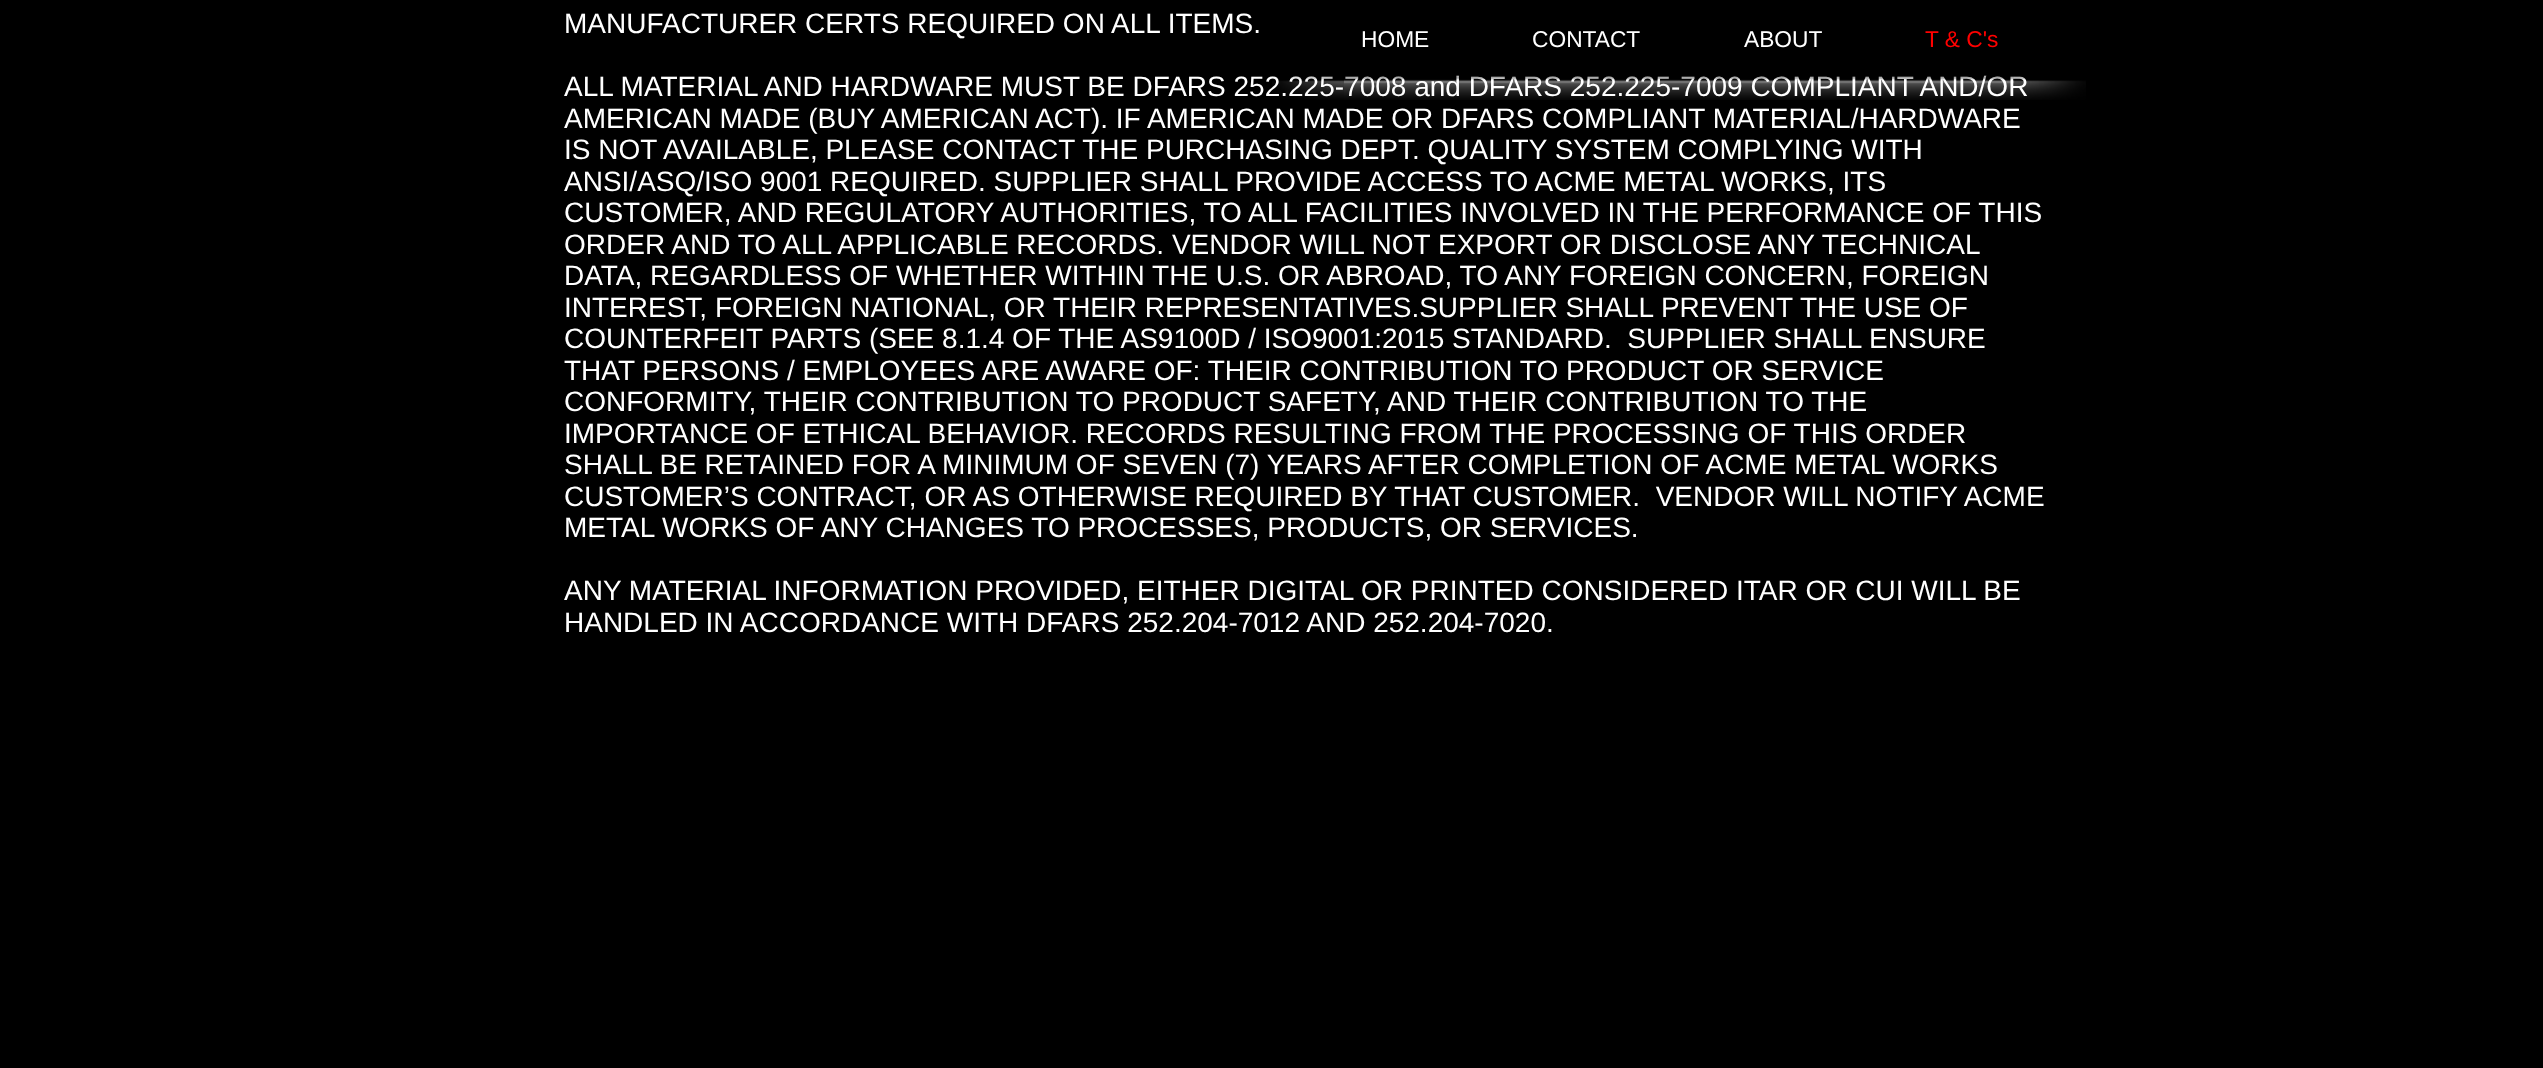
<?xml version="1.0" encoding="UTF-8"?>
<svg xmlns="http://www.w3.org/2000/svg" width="2543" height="1068">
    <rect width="100%" height="100%" fill="#000000"/>
    <text x="564" y="33" font-family="Liberation Sans" font-size="28" fill="#FFFFFF">MANUFACTURER CERTS REQUIRED ON ALL ITEMS.</text>
    <text font-family="Liberation Sans" font-size="28" fill="#FFFFFF" xml:space="preserve"><tspan x="564" y="96">ALL MATERIAL AND HARDWARE MUST BE DFARS 252.225-7008 and DFARS 252.225-7009 COMPLIANT AND/OR</tspan><tspan x="564" y="128">AMERICAN MADE (BUY AMERICAN ACT). IF AMERICAN MADE OR DFARS COMPLIANT MATERIAL/HARDWARE</tspan><tspan x="564" y="159">IS NOT AVAILABLE, PLEASE CONTACT THE PURCHASING DEPT. QUALITY SYSTEM COMPLYING WITH</tspan><tspan x="564" y="191">ANSI/ASQ/ISO 9001 REQUIRED. SUPPLIER SHALL PROVIDE ACCESS TO ACME METAL WORKS, ITS</tspan><tspan x="564" y="222">CUSTOMER, AND REGULATORY AUTHORITIES, TO ALL FACILITIES INVOLVED IN THE PERFORMANCE OF THIS</tspan><tspan x="564" y="254">ORDER AND TO ALL APPLICABLE RECORDS. VENDOR WILL NOT EXPORT OR DISCLOSE ANY TECHNICAL</tspan><tspan x="564" y="285">DATA, REGARDLESS OF WHETHER WITHIN THE U.S. OR ABROAD, TO ANY FOREIGN CONCERN, FOREIGN</tspan><tspan x="564" y="317">INTEREST, FOREIGN NATIONAL, OR THEIR REPRESENTATIVES.SUPPLIER SHALL PREVENT THE USE OF</tspan><tspan x="564" y="348">COUNTERFEIT PARTS (SEE 8.1.4 OF THE AS9100D / ISO9001:2015 STANDARD.  SUPPLIER SHALL ENSURE</tspan><tspan x="564" y="380">THAT PERSONS / EMPLOYEES ARE AWARE OF: THEIR CONTRIBUTION TO PRODUCT OR SERVICE</tspan><tspan x="564" y="411">CONFORMITY, THEIR CONTRIBUTION TO PRODUCT SAFETY, AND THEIR CONTRIBUTION TO THE</tspan><tspan x="564" y="443">IMPORTANCE OF ETHICAL BEHAVIOR. RECORDS RESULTING FROM THE PROCESSING OF THIS ORDER</tspan><tspan x="564" y="474">SHALL BE RETAINED FOR A MINIMUM OF SEVEN (7) YEARS AFTER COMPLETION OF ACME METAL WORKS</tspan><tspan x="564" y="506">CUSTOMER’S CONTRACT, OR AS OTHERWISE REQUIRED BY THAT CUSTOMER.  VENDOR WILL NOTIFY ACME</tspan><tspan x="564" y="537">METAL WORKS OF ANY CHANGES TO PROCESSES, PRODUCTS, OR SERVICES.</tspan></text>
    <text font-family="Liberation Sans" font-size="28" fill="#FFFFFF">
        <tspan x="564" y="600">ANY MATERIAL INFORMATION PROVIDED, EITHER DIGITAL OR PRINTED CONSIDERED ITAR OR CUI WILL BE</tspan>
        <tspan x="564" y="632">HANDLED IN ACCORDANCE WITH DFARS 252.204-7012 AND 252.204-7020.</tspan>
    </text>
    <text x="1361" y="47" font-family="Liberation Sans" font-size="22.75" fill="#FFFFFF">HOME</text>
    <text x="1532" y="47" font-family="Liberation Sans" font-size="22.75" fill="#FFFFFF">CONTACT</text>
    <text x="1744" y="47" font-family="Liberation Sans" font-size="22.75" fill="#FFFFFF">ABOUT</text>
    <text x="1925" y="47" font-family="Liberation Sans" font-size="22.75" fill="#FF0000">T &amp; C's</text>
    <image x="1344" y="75" width="671" height="25" href="img_01.png"/>
    <image x="1272" y="76" width="72" height="24" href="img_02.png"/>
    <image x="2014" y="76" width="72" height="24" href="img_03.png"/>
</svg>
